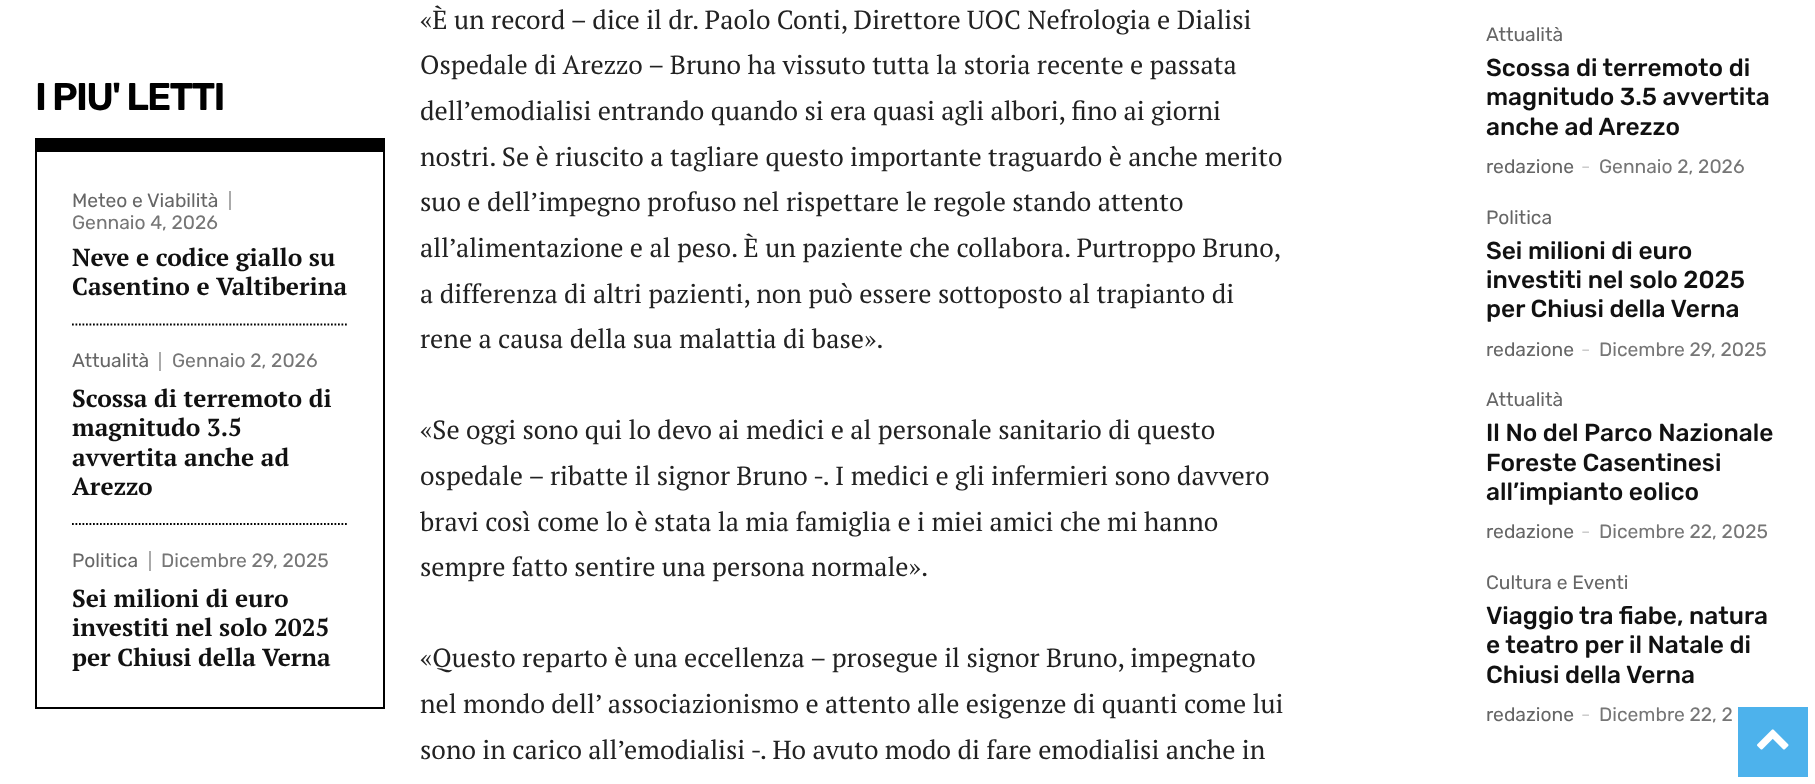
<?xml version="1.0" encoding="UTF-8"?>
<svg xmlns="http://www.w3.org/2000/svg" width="1815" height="784">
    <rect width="100%" height="100%" fill="#FFFFFF"/>
    <text x="35" y="110" font-family="Rubik" font-size="38.5" font-weight="600" letter-spacing="-1.75" fill="#000000">I PIU' LETTI</text>
    <rect x="37" y="138" width="346" height="14" fill="#000000"/>
    <rect x="383" y="138" width="2" height="571" fill="#000000"/>
    <rect x="35" y="707" width="350" height="2" fill="#000000"/>
    <rect x="35" y="138" width="2" height="571" fill="#000000"/>
    <rect x="229" y="191" width="2" height="19" fill="#AAAAAA"/>
    <text x="72" y="207" font-family="Rubik" font-size="19.25" fill="#666666">Meteo e Viabilità</text>
    <text x="72" y="229" font-family="Rubik" font-size="19.25" fill="#767676">Gennaio 4, 2026</text>
    <text font-family="PT Serif" font-size="24.5" font-weight="700" fill="#111111">
        <tspan x="72" y="266">Neve e codice giallo su</tspan>
        <tspan x="72" y="295">Casentino e Valtiberina</tspan>
    </text>
    <path d="M 72 324.5 H 348" fill="none" stroke="#000000" stroke-width="1.8" stroke-dasharray="1.75 1.75"/>
    <rect x="159" y="352" width="2" height="19" fill="#AAAAAA"/>
    <text x="72" y="367" font-family="Rubik" font-size="19.25" fill="#666666">Attualità</text>
    <text x="172" y="367" font-family="Rubik" font-size="19.25" fill="#767676">Gennaio 2, 2026</text>
    <text font-family="PT Serif" font-size="24.5" font-weight="700" fill="#111111">
        <tspan x="72" y="407">Scossa di terremoto di</tspan>
        <tspan x="72" y="436">magnitudo 3.5</tspan>
        <tspan x="72" y="466">avvertita anche ad</tspan>
        <tspan x="72" y="495">Arezzo</tspan>
    </text>
    <path d="M 72 524 H 348" fill="none" stroke="#000000" stroke-width="1.8" stroke-dasharray="1.75 1.75"/>
    <rect x="149" y="551" width="2" height="20" fill="#AAAAAA"/>
    <text x="72" y="567" font-family="Rubik" font-size="19.25" fill="#666666">Politica</text>
    <text x="161" y="567" font-family="Rubik" font-size="19.25" fill="#767676">Dicembre 29, 2025</text>
    <text font-family="PT Serif" font-size="24.5" font-weight="700" fill="#111111">
        <tspan x="72" y="607">Sei milioni di euro</tspan>
        <tspan x="72" y="636">investiti nel solo 2025</tspan>
        <tspan x="72" y="666">per Chiusi della Verna</tspan>
    </text>
    <text font-family="PT Serif" font-size="26.25" fill="#222222">
        <tspan x="420" y="29">«È un record – dice il dr. Paolo Conti, Direttore UOC Nefrologia e Dialisi</tspan>
        <tspan x="420" y="74">Ospedale di Arezzo – Bruno ha vissuto tutta la storia recente e passata</tspan>
        <tspan x="420" y="120">dell’emodialisi entrando quando si era quasi agli albori, fino ai giorni</tspan>
        <tspan x="420" y="166">nostri. Se è riuscito a tagliare questo importante traguardo è anche merito</tspan>
        <tspan x="420" y="211">suo e dell’impegno profuso nel rispettare le regole stando attento</tspan>
        <tspan x="420" y="257">all’alimentazione e al peso. È un paziente che collabora. Purtroppo Bruno,</tspan>
        <tspan x="420" y="303">a differenza di altri pazienti, non può essere sottoposto al trapianto di</tspan>
        <tspan x="420" y="348">rene a causa della sua malattia di base».</tspan>
    </text>
    <text font-family="PT Serif" font-size="26.25" fill="#222222">
        <tspan x="420" y="439">«Se oggi sono qui lo devo ai medici e al personale sanitario di questo</tspan>
        <tspan x="420" y="485">ospedale – ribatte il signor Bruno -. I medici e gli infermieri sono davvero</tspan>
        <tspan x="420" y="531">bravi così come lo è stata la mia famiglia e i miei amici che mi hanno</tspan>
        <tspan x="420" y="576">sempre fatto sentire una persona normale».</tspan>
    </text>
    <text font-family="PT Serif" font-size="26.25" fill="#222222">
        <tspan x="420" y="667">«Questo reparto è una eccellenza – prosegue il signor Bruno, impegnato</tspan>
        <tspan x="420" y="713">nel mondo dell’ associazionismo e attento alle esigenze di quanti come lui</tspan>
        <tspan x="420" y="759">sono in carico all’emodialisi -. Ho avuto modo di fare emodialisi anche in</tspan>
    </text>
    <text x="1486" y="41" font-family="Rubik" font-size="19.25" fill="#666666">Attualità</text>
    <text font-family="Rubik" font-size="24.5" font-weight="500" fill="#111111">
        <tspan x="1486" y="76">Scossa di terremoto di</tspan>
        <tspan x="1486" y="105">magnitudo 3.5 avvertita</tspan>
        <tspan x="1486" y="135">anche ad Arezzo</tspan>
    </text>
    <text x="1486" y="173" font-family="Rubik" font-size="19.25" fill="#666666">redazione</text>
    <text x="1581" y="173" font-family="Rubik" font-size="19.25" fill="#CCCCCC">-</text>
    <text x="1599" y="173" font-family="Rubik" font-size="19.25" fill="#767676">Gennaio 2, 2026</text>
    <text x="1486" y="224" font-family="Rubik" font-size="19.25" fill="#666666">Politica</text>
    <text font-family="Rubik" font-size="24.5" font-weight="500" fill="#111111">
        <tspan x="1486" y="259">Sei milioni di euro</tspan>
        <tspan x="1486" y="288">investiti nel solo 2025</tspan>
        <tspan x="1486" y="317">per Chiusi della Verna</tspan>
    </text>
    <text x="1486" y="356" font-family="Rubik" font-size="19.25" fill="#666666">redazione</text>
    <text x="1581" y="356" font-family="Rubik" font-size="19.25" fill="#CCCCCC">-</text>
    <text x="1599" y="356" font-family="Rubik" font-size="19.25" fill="#767676">Dicembre 29, 2025</text>
    <text x="1486" y="406" font-family="Rubik" font-size="19.25" fill="#666666">Attualità</text>
    <text font-family="Rubik" font-size="24.5" font-weight="500" fill="#111111">
        <tspan x="1486" y="441">Il No del Parco Nazionale</tspan>
        <tspan x="1486" y="471">Foreste Casentinesi</tspan>
        <tspan x="1486" y="500">all’impianto eolico</tspan>
    </text>
    <text x="1486" y="538" font-family="Rubik" font-size="19.25" fill="#666666">redazione</text>
    <text x="1581" y="538" font-family="Rubik" font-size="19.25" fill="#CCCCCC">-</text>
    <text x="1599" y="538" font-family="Rubik" font-size="19.25" fill="#767676">Dicembre 22, 2025</text>
    <text x="1486" y="589" font-family="Rubik" font-size="19.25" fill="#666666">Cultura e Eventi</text>
    <text font-family="Rubik" font-size="24.5" font-weight="500" fill="#111111">
        <tspan x="1486" y="624">Viaggio tra fiabe, natura</tspan>
        <tspan x="1486" y="653">e teatro per il Natale di</tspan>
        <tspan x="1486" y="683">Chiusi della Verna</tspan>
    </text>
    <text x="1486" y="721" font-family="Rubik" font-size="19.25" fill="#666666">redazione</text>
    <text x="1581" y="721" font-family="Rubik" font-size="19.25" fill="#CCCCCC">-</text>
    <text x="1599" y="721" font-family="Rubik" font-size="19.25" fill="#767676">Dicembre 22, 2</text>
    <rect x="1738" y="707" width="70" height="70" fill="#4DB2EC"/>
    <image x="1757" y="729" width="32" height="21" href="img_01.png"/>
</svg>
